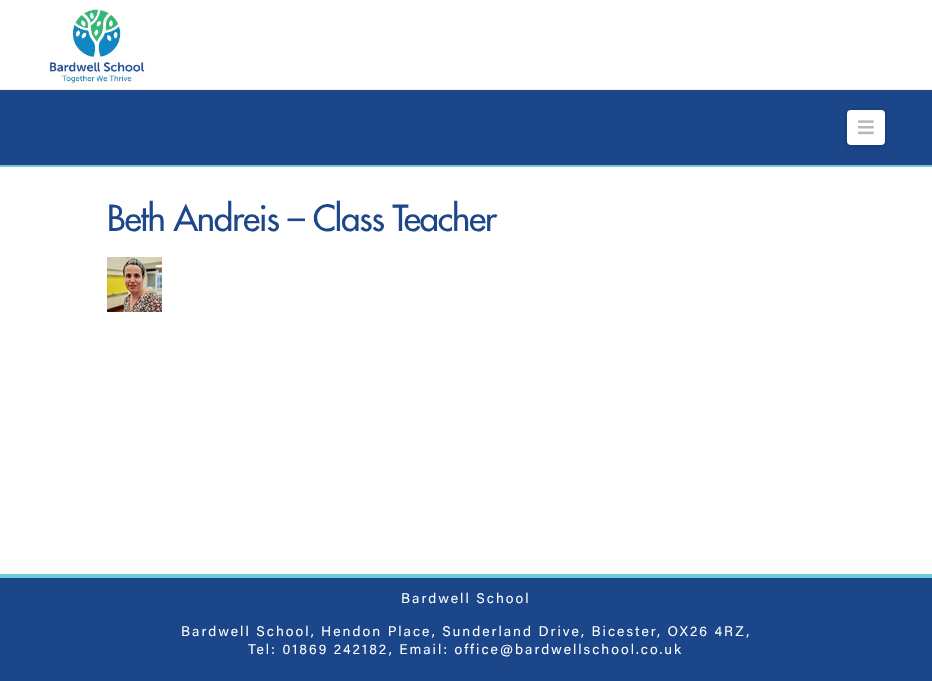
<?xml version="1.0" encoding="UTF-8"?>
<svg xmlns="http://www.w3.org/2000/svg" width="932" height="681">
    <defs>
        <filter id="blur1" x="-50%" y="-200%" width="200%" height="500%"><feGaussianBlur stdDeviation="2.5"/></filter>
    </defs>
    <rect width="100%" height="100%" fill="#FFFFFF"/>
    <rect x="0" y="165" width="932" height="2" fill="#6CCCDA"/>
    <rect x="0" y="90" width="932" height="75" fill="#1B468A"/>
    <image x="47" y="9" width="100" height="78" href="img_01.png"/>
    <rect x="847" y="111" width="38" height="35" rx="4" fill="#000000" fill-opacity="0.25" filter="url(#blur1)"/>
    <rect x="847" y="110" width="38" height="35" rx="4" fill="#FFFFFF"/>
    <image x="858" y="120" width="16" height="15" href="img_02.png"/>
    <rect x="0" y="89" width="932" height="1" fill="#F2F2F2"/>
    <text x="107" y="231" font-family="Futura" font-size="35" font-weight="500" letter-spacing="-1.25" fill="#1C4789">Beth Andreis – Class Teacher</text>
    <image x="107" y="257" width="55" height="55" href="img_03.png"/>
    <rect x="0" y="578" width="932" height="103" fill="#1B468A"/>
    <rect x="0" y="574" width="932" height="4" fill="#6CCCDA"/>
    <text x="401" y="603" font-family="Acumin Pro" font-size="14" letter-spacing="2" fill="#FFFFFF">Bardwell School</text>
    <text x="181" y="636" font-family="Acumin Pro" font-size="14" letter-spacing="2" fill="#FFFFFF">Bardwell School, Hendon Place, Sunderland Drive, Bicester, OX26 4RZ,</text>
    <text x="248" y="654" font-family="Acumin Pro" font-size="14" letter-spacing="2" fill="#FFFFFF">Tel: 01869 242182, Email: office@bardwellschool.co.uk</text>
</svg>
